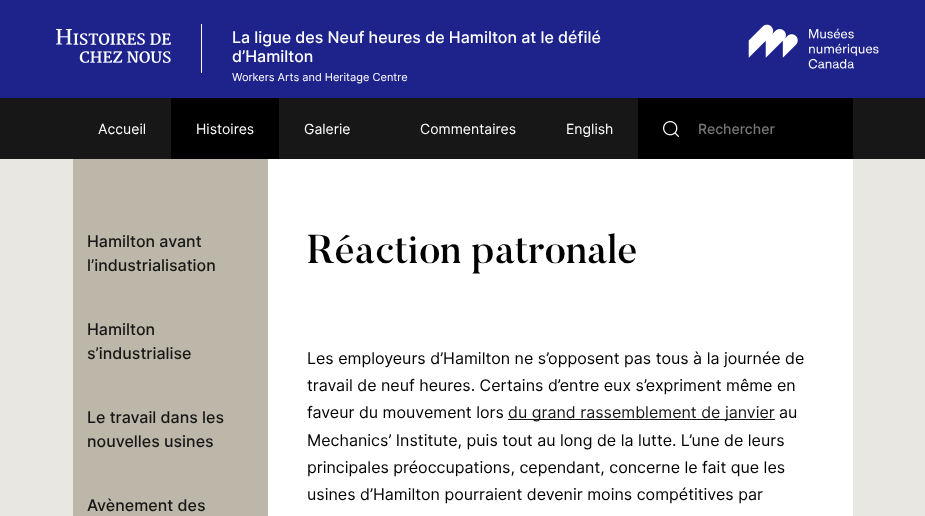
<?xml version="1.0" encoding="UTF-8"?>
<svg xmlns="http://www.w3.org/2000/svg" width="925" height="516">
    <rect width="100%" height="100%" fill="#E8E7E2"/>
    <rect x="0" y="0" width="925" height="98" fill="#1E238B"/>
    <rect x="201" y="24" width="1" height="49" fill="#FFFFFF"/>
    <image x="56" y="29" width="115" height="34" href="img_01.png"/>
    <image x="748" y="24" width="131" height="45" href="img_02.png"/>
    <text font-family="Inter" font-size="16" font-weight="500" fill="#FFFFFF">
        <tspan x="232" y="43">La ligue des Neuf heures de Hamilton at le défilé</tspan>
        <tspan x="232" y="62">d’Hamilton</tspan>
    </text>
    <text x="232" y="81" font-family="Inter" font-size="11" fill="#FFFFFF">Workers Arts and Heritage Centre</text>
    <rect x="0" y="98" width="925" height="61" fill="#171717"/>
    <text x="98" y="134" font-family="Inter" font-size="14" fill="#FFFFFF">Accueil</text>
    <rect x="171" y="98" width="108" height="61" fill="#000000"/>
    <text x="196" y="134" font-family="Inter" font-size="14" fill="#FFFFFF">Histoires</text>
    <text x="304" y="134" font-family="Inter" font-size="14" fill="#FFFFFF">Galerie</text>
    <text x="420" y="134" font-family="Inter" font-size="14" fill="#FFFFFF">Commentaires</text>
    <text x="566" y="134" font-family="Inter" font-size="14" fill="#FFFFFF">English</text>
    <rect x="638" y="98" width="215" height="61" fill="#000000"/>
    <image x="663" y="121" width="16" height="16" href="img_03.png"/>
    <text x="698" y="134" font-family="Inter" font-size="14" font-weight="500" fill="#757575">Rechercher</text>
    <rect x="73" y="159" width="195" height="357" fill="#BDB7AA"/>
    <text font-family="Inter" font-size="16" font-weight="500" fill="#171717">
        <tspan x="87" y="247">Hamilton avant</tspan>
        <tspan x="87" y="271">l’industrialisation</tspan>
    </text>
    <text font-family="Inter" font-size="16" font-weight="500" fill="#171717">
        <tspan x="87" y="335">Hamilton</tspan>
        <tspan x="87" y="359">s’industrialise</tspan>
    </text>
    <text font-family="Inter" font-size="16" font-weight="500" fill="#171717">
        <tspan x="87" y="423">Le travail dans les</tspan>
        <tspan x="87" y="447">nouvelles usines</tspan>
    </text>
    <text x="87" y="511" font-family="Inter" font-size="16" font-weight="500" fill="#171717">Avènement des</text>
    <rect x="268" y="159" width="585" height="357" fill="#FFFFFF"/>
    <text x="307" y="263" font-family="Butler" font-size="40" font-weight="500" fill="#000000">Réaction patronale</text>
    <text font-family="Inter" font-size="16" fill="#000000">
        <tspan x="307" y="364">Les employeurs d’Hamilton ne s’opposent pas tous à la journée de</tspan>
        <tspan x="307" y="391">travail de neuf heures. Certains d’entre eux s’expriment même en</tspan>
        <tspan x="307" y="418">faveur du mouvement lors</tspan>
    </text>
    <rect x="508" y="419" width="267" height="1" fill="#171717"/>
    <text x="508" y="418" font-family="Inter" font-size="16" fill="#171717">du grand rassemblement de janvier</text>
    <text x="779" y="418" font-family="Inter" font-size="16" fill="#000000">au</text>
    <text font-family="Inter" font-size="16" fill="#000000">
        <tspan x="307" y="446">Mechanics’ Institute, puis tout au long de la lutte. L’une de leurs</tspan>
        <tspan x="307" y="473">principales préoccupations, cependant, concerne le fait que les</tspan>
        <tspan x="307" y="500">usines d’Hamilton pourraient devenir moins compétitives par</tspan>
    </text>
</svg>
